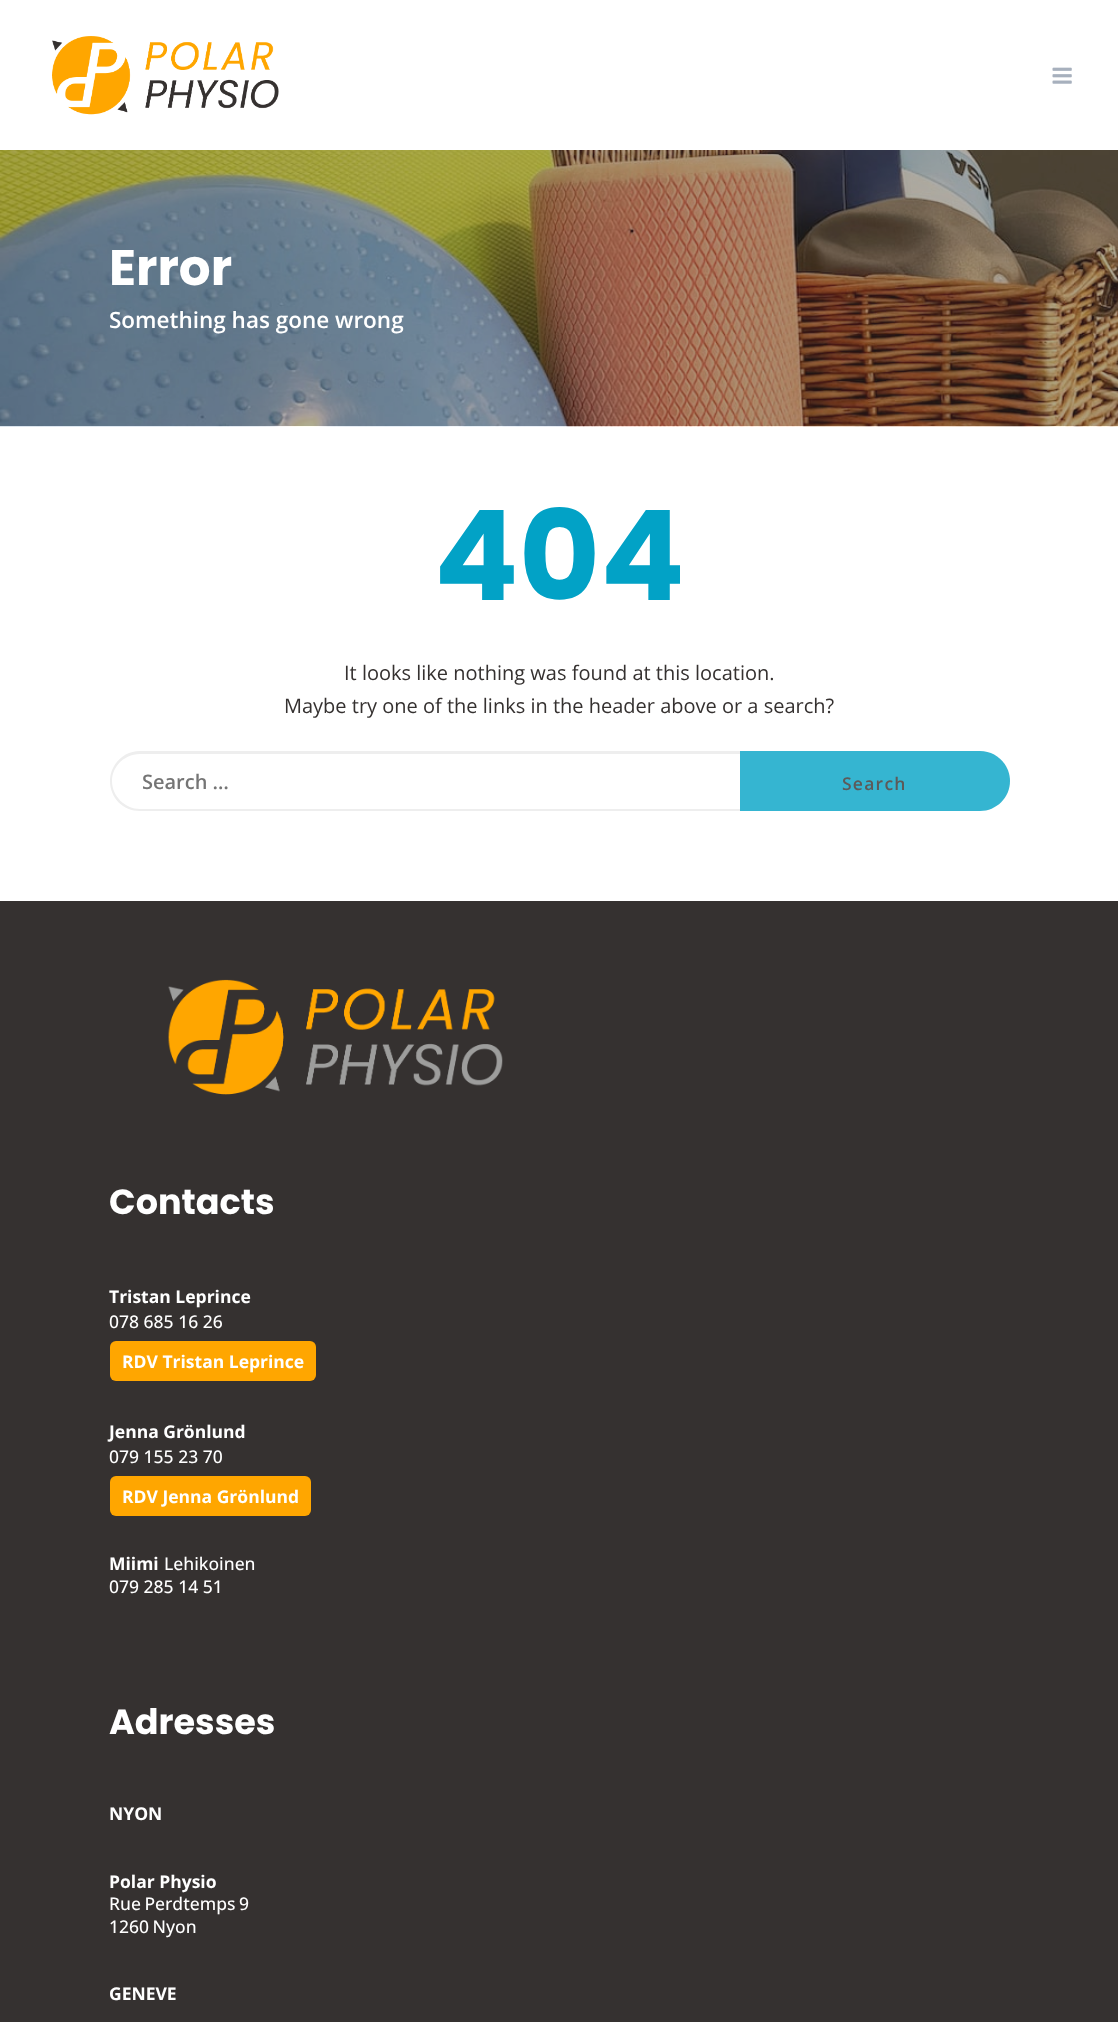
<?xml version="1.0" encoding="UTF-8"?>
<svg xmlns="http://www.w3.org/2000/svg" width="1118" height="2022">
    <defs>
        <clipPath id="clip1"><rect x="143" y="768" width="577" height="27"/></clipPath>
    </defs>
    <rect width="100%" height="100%" fill="#FFFFFF"/>
    <image x="52" y="36" width="227" height="79" href="img_01.png"/>
    <image x="1052" y="67" width="20" height="17" href="img_02.png"/>
    <image x="0" y="150" width="1118" height="277" href="img_03.png"/>
    <text x="109" y="285" font-family="Poppins" font-size="50" font-weight="700" fill="#FFFFFF">Error</text>
    <text x="109" y="328" font-family="Open Sans" font-size="22.5" font-weight="600" fill="#FFFFFF">Something has gone wrong</text>
    <text x="434" y="600" font-family="Poppins" font-size="125" font-weight="700" fill="#02A2C6">404</text>
    <text x="344" y="680" font-family="Open Sans" font-size="20" fill="#353130">It looks like nothing was found at this location.</text>
    <text x="284" y="713" font-family="Open Sans" font-size="20" fill="#353130">Maybe try one of the links in the header above or a search?</text>
    <path d="M 140 751 H 740 V 811 H 140 C 123 811 110 798 110 781 C 110 765 123 751 140 751 Z M 140 754 H 740 V 809 H 140 C 125 809 112 796 112 781 C 112 766 125 754 140 754 Z" fill="#EEEEEE" fill-rule="evenodd"/>
    <g clip-path="url(#clip1)">
        <text x="142" y="789" font-family="Open Sans" font-size="20" font-weight="600" fill="#757575">Search …</text>
    </g>
    <path d="M 740 751 H 980 C 996.5 751 1010 764.5 1010 781 C 1010 797.5 996.5 811 980 811 H 740 Z" fill="#35B5D1"/>
    <text x="842" y="790" font-family="Open Sans" font-size="17.5" font-weight="600" letter-spacing="1.25" fill="#5D5A59">Search</text>
    <rect x="0" y="901" width="1118" height="1121" fill="#353130"/>
    <image x="168" y="979" width="335" height="116" href="img_04.png"/>
    <text x="109" y="1214" font-family="Poppins" font-size="35" font-weight="700" fill="#FFFFFF">Contacts</text>
    <text x="109" y="1303" font-family="Open Sans" font-size="17.5" font-weight="700" fill="#FFFFFF">Tristan Leprince</text>
    <text x="109" y="1328" font-family="Open Sans" font-size="17.5" font-weight="500" fill="#FFFFFF">078 685 16 26</text>
    <rect x="110" y="1341" width="206" height="40" rx="6" fill="#FFA600"/>
    <text x="122" y="1368" font-family="Open Sans" font-size="17.5" font-weight="700" fill="#FFFFFF">RDV Tristan Leprince</text>
    <text x="109" y="1438" font-family="Open Sans" font-size="17.5" font-weight="700" fill="#FFFFFF">Jenna Grönlund</text>
    <text x="109" y="1463" font-family="Open Sans" font-size="17.5" font-weight="500" fill="#FFFFFF">079 155 23 70</text>
    <rect x="110" y="1476" width="201" height="40" rx="6" fill="#FFA600"/>
    <text x="122" y="1503" font-family="Open Sans" font-size="17.5" font-weight="700" fill="#FFFFFF">RDV Jenna Grönlund</text>
    <text x="109" y="1570" font-family="Open Sans" font-size="17.5" font-weight="700" fill="#FFFFFF">Miimi</text>
    <text x="164" y="1570" font-family="Open Sans" font-size="17.5" font-weight="500" fill="#FFFFFF">Lehikoinen</text>
    <text x="109" y="1593" font-family="Open Sans" font-size="17.5" font-weight="500" fill="#FFFFFF">079 285 14 51</text>
    <text x="109" y="1734" font-family="Poppins" font-size="35" font-weight="700" fill="#FFFFFF">Adresses</text>
    <text x="109" y="1820" font-family="Open Sans" font-size="17.5" font-weight="700" fill="#FFFFFF">NYON</text>
    <text x="109" y="1888" font-family="Open Sans" font-size="17.5" font-weight="700" fill="#FFFFFF">Polar Physio</text>
    <text font-family="Open Sans" font-size="17.5" font-weight="500" fill="#FFFFFF">
        <tspan x="109" y="1910" word-spacing="-1">Rue Perdtemps 9</tspan>
        <tspan x="109" y="1933" word-spacing="-1">1260 Nyon</tspan>
    </text>
    <text x="109" y="2000" font-family="Open Sans" font-size="17.5" font-weight="700" fill="#FFFFFF">GENEVE</text>
</svg>
